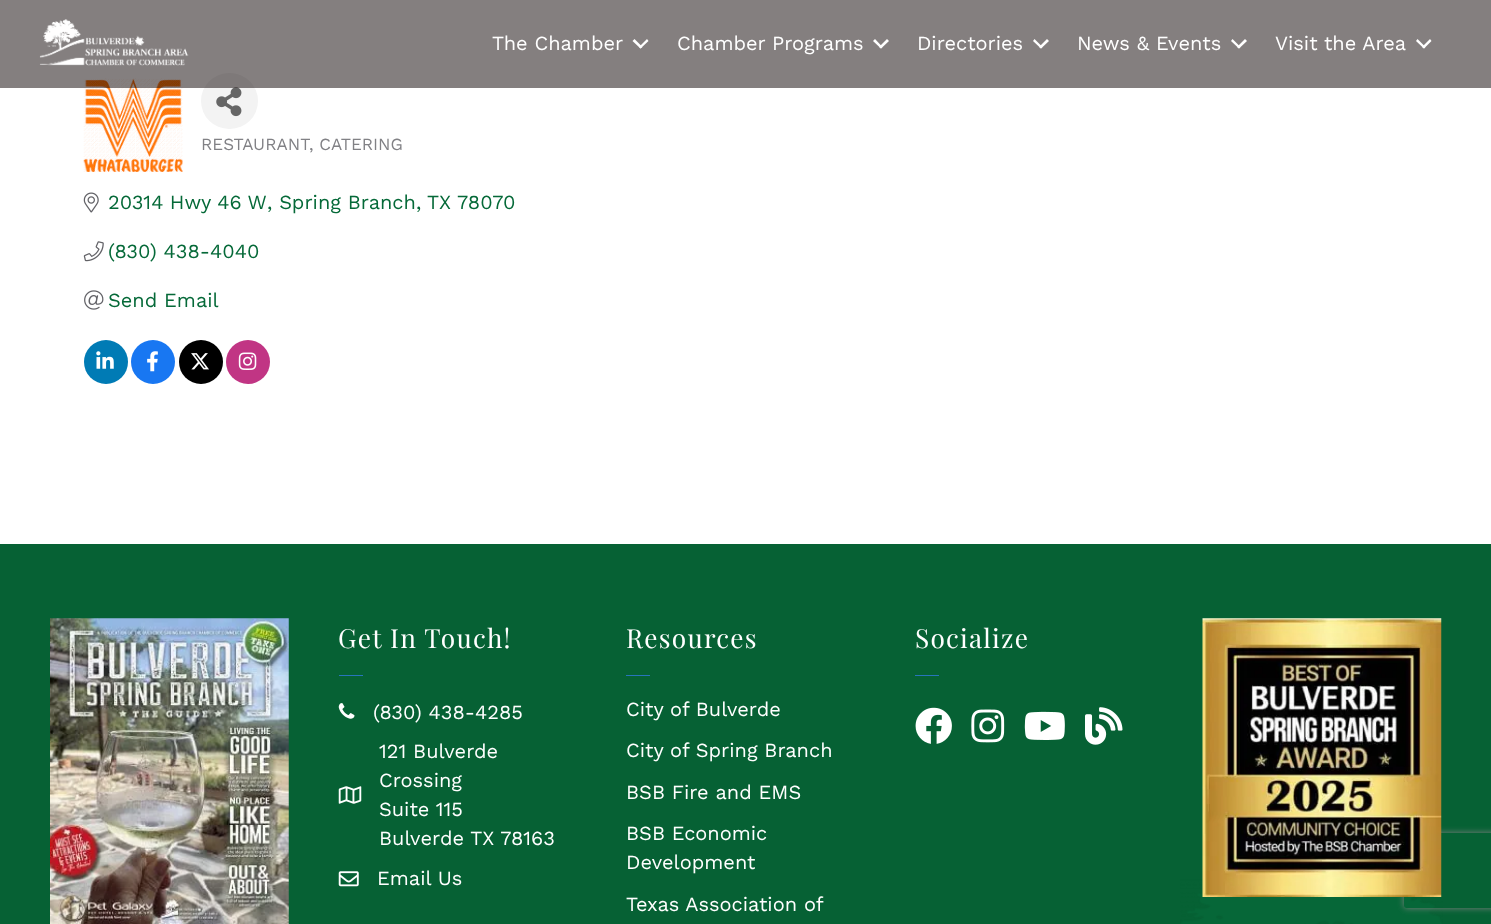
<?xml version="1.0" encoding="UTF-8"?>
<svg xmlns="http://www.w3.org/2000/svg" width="1491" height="924">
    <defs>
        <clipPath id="clip1"><path d="M 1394 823 H 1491 V 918 H 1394 Z M 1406.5 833 H 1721.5 C 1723 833 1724 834 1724 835.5 V 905.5 C 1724 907 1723 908 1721.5 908 H 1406.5 C 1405 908 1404 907 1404 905.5 V 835.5 C 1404 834 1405 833 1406.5 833 Z" clip-rule="evenodd"/></clipPath>
        <filter id="blur1" x="-50%" y="-200%" width="200%" height="500%"><feGaussianBlur stdDeviation="3"/></filter>
    </defs>
    <rect width="100%" height="100%" fill="#FFFFFF"/>
    <image x="83" y="78" width="100" height="94" href="img_02.png"/>
    <rect x="201" y="73" width="57" height="56" rx="28" fill="#F3F3F3"/>
    <image x="216" y="87" width="26" height="30" href="img_03.png"/>
    <rect x="0" y="0" width="1491" height="88" fill="#0A0000" fill-opacity="0.5"/>
    <image x="39" y="19" width="150" height="47" href="img_01.png"/>
    <text x="492" y="50" font-family="Work Sans" font-size="20" fill="#FFFFFF">The Chamber</text>
    <path d="M 647 39 L 648.5 41 L 640.5 48.5 L 639 47 Z" fill="#FFFFFF"/>
    <path d="M 634.5 39 L 642.5 47 L 640.5 48.5 L 632.5 41 Z" fill="#FFFFFF"/>
    <text x="677" y="50" font-family="Work Sans" font-size="20" fill="#FFFFFF">Chamber Programs</text>
    <path d="M 887 39 L 889 41 L 881 48.5 L 879 47 Z" fill="#FFFFFF"/>
    <path d="M 875 39 L 882.5 47 L 881 48.5 L 873 41 Z" fill="#FFFFFF"/>
    <text x="917" y="50" font-family="Work Sans" font-size="20" fill="#FFFFFF">Directories</text>
    <path d="M 1047 39 L 1049 41 L 1041 48.5 L 1039 47 Z" fill="#FFFFFF"/>
    <path d="M 1034.5 39 L 1042.5 47 L 1041 48.5 L 1033 41 Z" fill="#FFFFFF"/>
    <text x="1077" y="50" font-family="Work Sans" font-size="20" fill="#FFFFFF">News &amp; Events</text>
    <path d="M 1245 39 L 1247 41 L 1239 48.5 L 1237 47 Z" fill="#FFFFFF"/>
    <path d="M 1232.5 39 L 1240.5 47 L 1239 48.5 L 1231 41 Z" fill="#FFFFFF"/>
    <text x="1275" y="50" font-family="Work Sans" font-size="20" fill="#FFFFFF">Visit the Area</text>
    <path d="M 1430 39 L 1431.5 41 L 1424 48.5 L 1422 47 Z" fill="#FFFFFF"/>
    <path d="M 1417.5 39 L 1425.5 47 L 1424 48.5 L 1416 41 Z" fill="#FFFFFF"/>
    <text x="201" y="150" font-family="Work Sans" font-size="17" fill="#818185">RESTAURANT</text>
    <text x="309" y="150" font-family="Work Sans" font-size="17" fill="#818185">, CATERING</text>
    <image x="83" y="192" width="16" height="21" href="img_04.png"/>
    <text x="108" y="209" word-spacing="-0.5" font-family="Work Sans" font-size="20" fill="#056938">20314 Hwy 46 W</text>
    <text x="267" y="209" font-family="Work Sans" font-size="20" fill="#056938">, Spring Branch,</text>
    <text x="427" y="209" font-family="Work Sans" font-size="20" fill="#056938">TX</text>
    <text x="457" y="209" font-family="Work Sans" font-size="20" fill="#056938">78070</text>
    <image x="83" y="241" width="21" height="21" href="img_05.png"/>
    <text x="108" y="258" font-family="Work Sans" font-size="20" fill="#056938">(830) 438-4040</text>
    <image x="84" y="290" width="20" height="20" href="img_06.png"/>
    <text x="108" y="307" font-family="Work Sans" font-size="20" fill="#056938">Send Email</text>
    <circle cx="106" cy="362" r="22" fill="#007BB5"/>
    <image x="96" y="351" width="18" height="18" href="img_07.png"/>
    <circle cx="153" cy="362" r="22" fill="#1877F2"/>
    <image x="147" y="351" width="11" height="21" href="img_08.png"/>
    <circle cx="201" cy="362" r="22" fill="#000000"/>
    <image x="191" y="353" width="18" height="17" href="img_09.png"/>
    <circle cx="248" cy="362" r="22" fill="#C13584"/>
    <image x="238" y="352" width="19" height="18" href="img_10.png"/>
    <rect x="0" y="544" width="1491" height="380" fill="#066134"/>
    <image x="1180" y="879" width="263" height="45" href="img_11.png"/>
    <image x="50" y="618" width="239" height="306" href="img_12.png"/>
    <text x="338" y="648" font-family="Playfair Display" font-size="26.25" letter-spacing="1.25" fill="#FFFFFF">Get In Touch!</text>
    <rect x="339" y="675" width="24" height="1" fill="#2875BC"/>
    <image x="338" y="703" width="17" height="16" href="img_13.png"/>
    <text x="373" y="719" font-family="Work Sans" font-size="20" fill="#FFFFFF">(830) 438-4285</text>
    <image x="338" y="786" width="24" height="18" href="img_14.png"/>
    <text font-family="Work Sans" font-size="20" fill="#FFFFFF">
        <tspan x="379" y="758">121 Bulverde</tspan>
        <tspan x="379" y="787">Crossing</tspan>
        <tspan x="379" y="816">Suite 115</tspan>
        <tspan x="379" y="845">Bulverde TX 78163</tspan>
    </text>
    <image x="338" y="871" width="21" height="16" href="img_15.png"/>
    <text x="377" y="885" font-family="Work Sans" font-size="20" fill="#FFFFFF">Email Us</text>
    <text x="626" y="648" font-family="Playfair Display" font-size="26.25" letter-spacing="1.25" fill="#FFFFFF">Resources</text>
    <rect x="626" y="675" width="24" height="1" fill="#2875BC"/>
    <text x="626" y="716" font-family="Work Sans" font-size="20" fill="#FFFFFF">City of Bulverde</text>
    <text x="626" y="757" font-family="Work Sans" font-size="20" fill="#FFFFFF">City of Spring Branch</text>
    <text x="626" y="799" font-family="Work Sans" font-size="20" fill="#FFFFFF">BSB Fire and EMS</text>
    <text font-family="Work Sans" font-size="20" fill="#FFFFFF">
        <tspan x="626" y="840">BSB Economic</tspan>
        <tspan x="626" y="869">Development</tspan>
    </text>
    <text x="626" y="911" font-family="Work Sans" font-size="20" fill="#FFFFFF">Texas Association of</text>
    <text x="915" y="648" font-family="Playfair Display" font-size="26.25" letter-spacing="1.25" fill="#FFFFFF">Socialize</text>
    <rect x="915" y="675" width="24" height="1" fill="#2875BC"/>
    <image x="915" y="707" width="37" height="37" href="img_16.png"/>
    <image x="971" y="709" width="34" height="34" href="img_17.png"/>
    <image x="1024" y="711" width="41" height="29" href="img_18.png"/>
    <image x="1085" y="707" width="38" height="38" href="img_19.png"/>
    <g clip-path="url(#clip1)">
        <rect x="1404" y="833" width="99" height="75" rx="2.5" fill="#808080" filter="url(#blur1)"/>
    </g>
    <image x="1202" y="618" width="240" height="279" href="img_20.png"/>
</svg>
